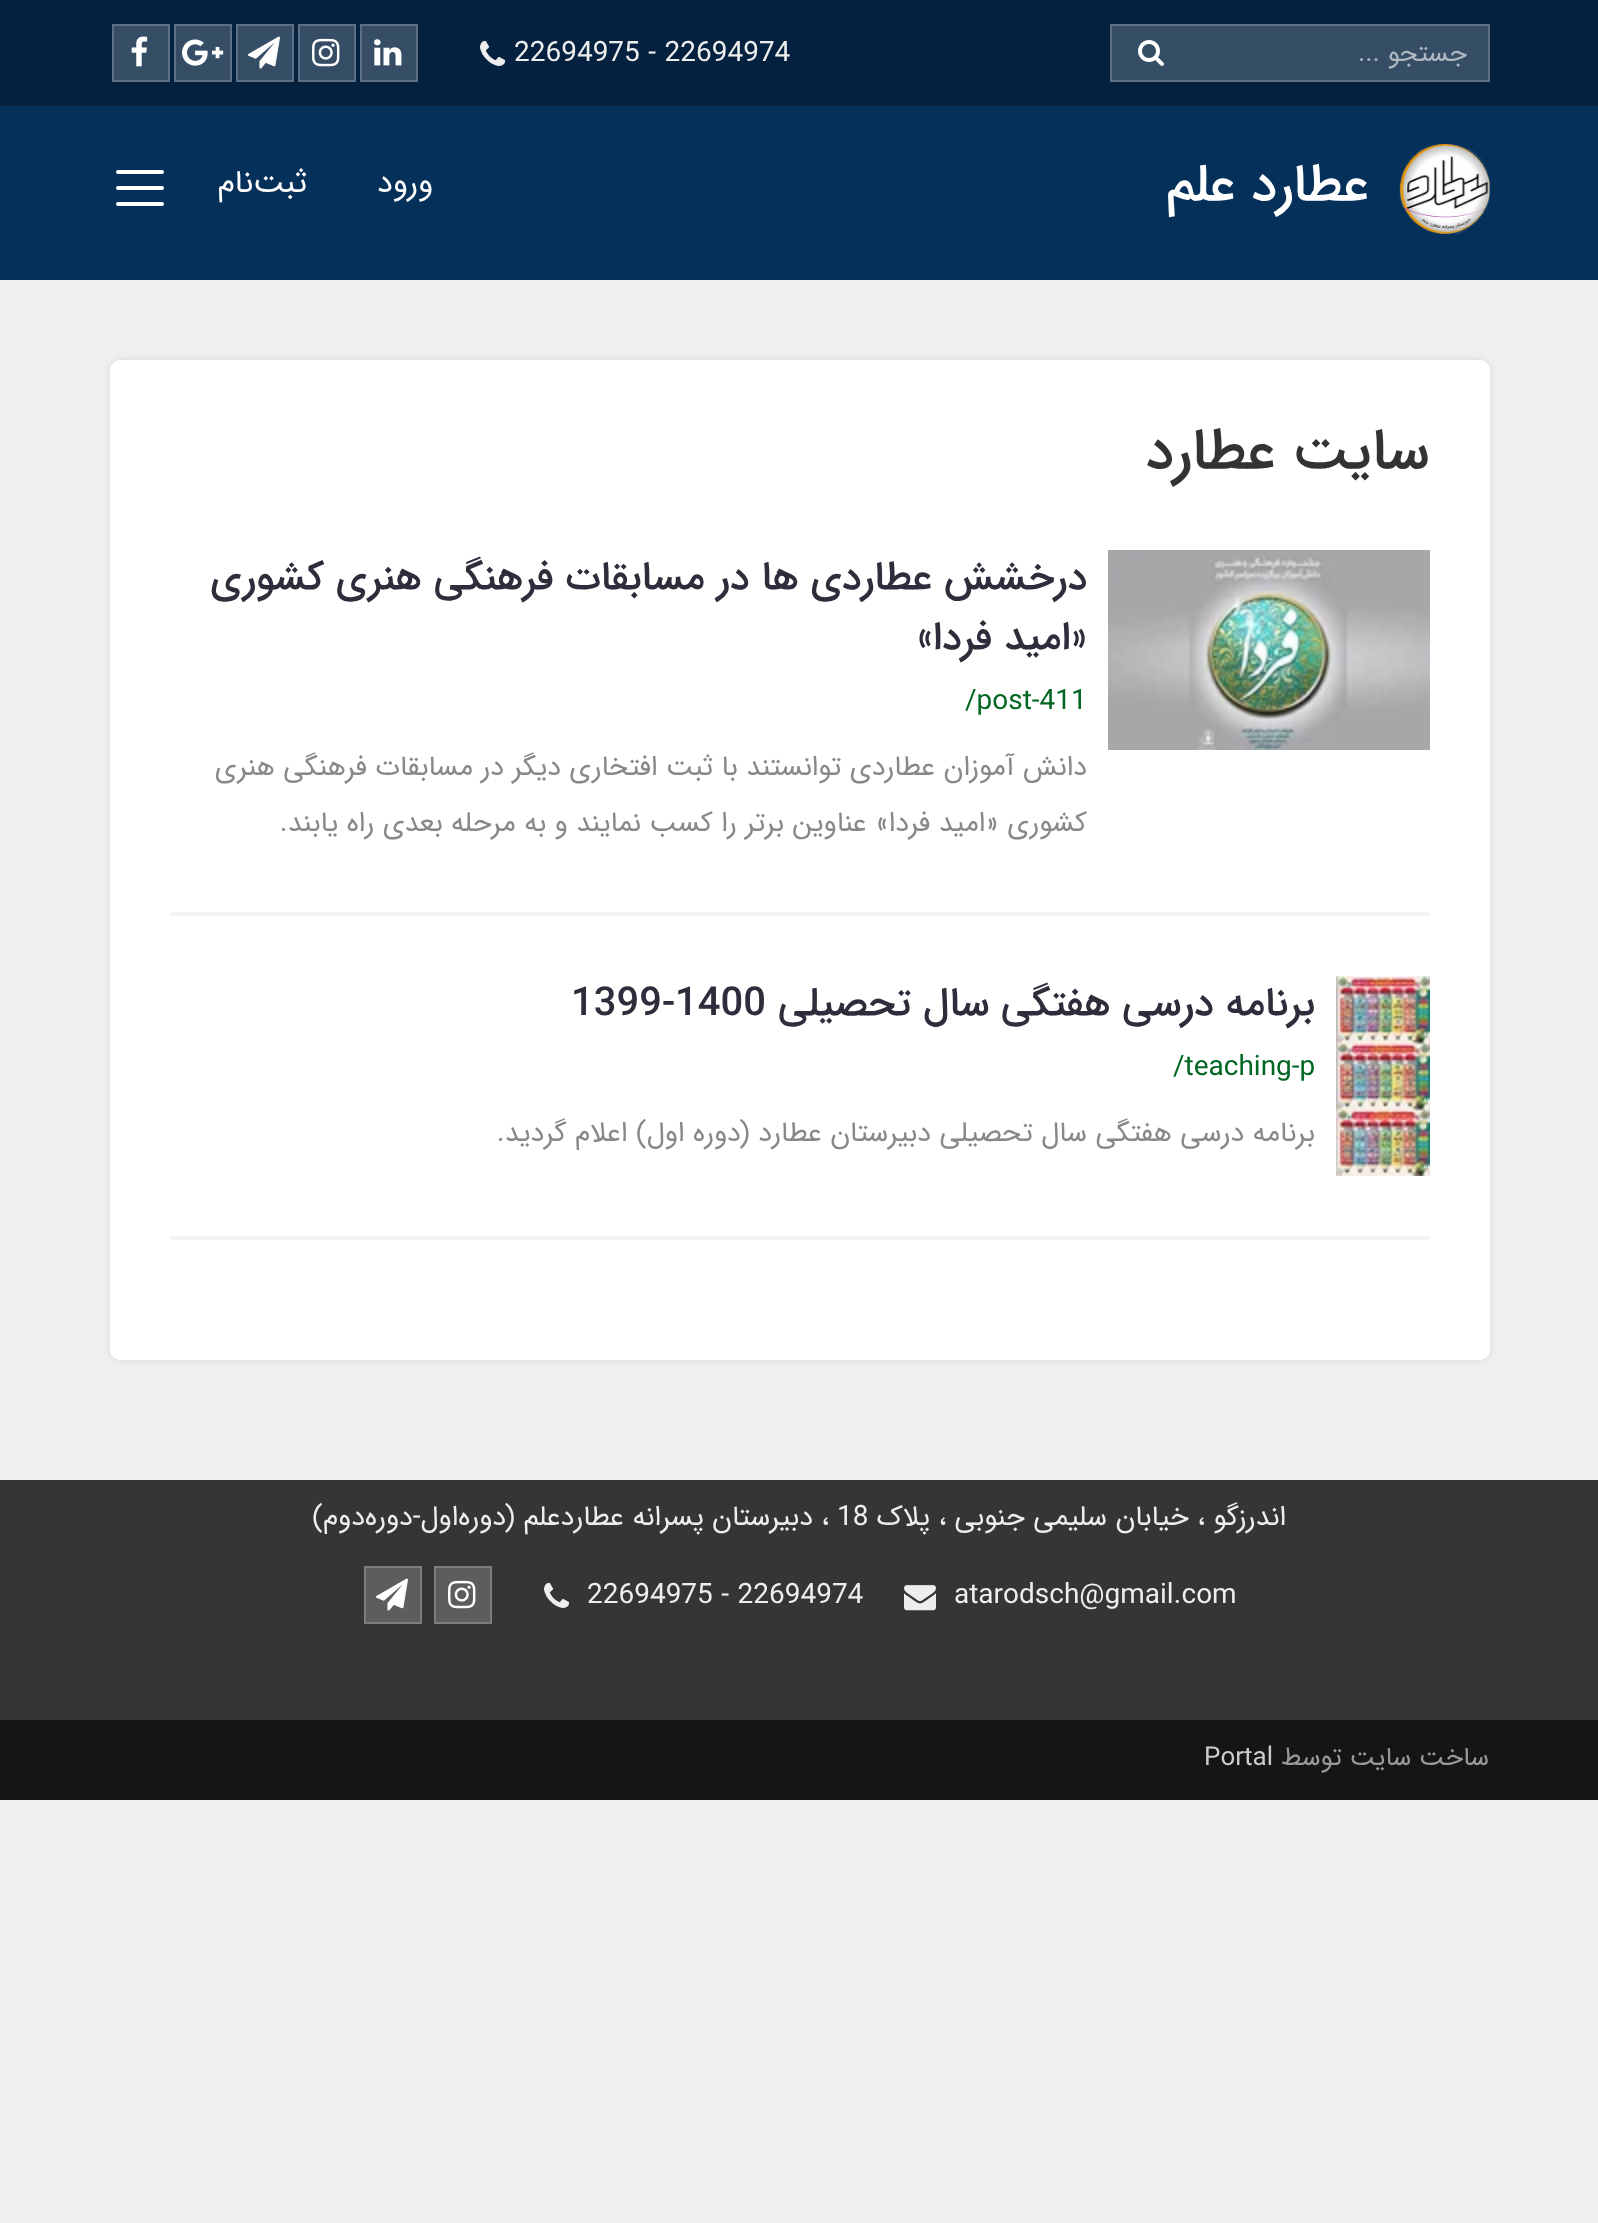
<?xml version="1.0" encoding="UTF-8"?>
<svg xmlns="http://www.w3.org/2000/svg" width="1598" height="2223">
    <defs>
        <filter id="blur1" x="-50%" y="-200%" width="200%" height="500%"><feGaussianBlur stdDeviation="3"/></filter>
    </defs>
    <rect width="100%" height="100%" fill="#EFEFEF"/>
    <rect x="0" y="0" width="1598" height="106" fill="#04223F"/>
    <rect x="1111" y="25" width="378" height="56" fill="#364E65" stroke="#5E7184" stroke-width="2"/>
    <text x="1467" y="61" font-family="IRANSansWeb" font-size="26" direction="rtl" fill="#AFB8C1">جستجو ...</text>
    <image x="1138" y="40" width="26" height="26" href="img_01.png"/>
    <text x="514" y="61" font-family="IRANSansWeb" font-size="28" fill="#EEEEEE">22694975 - 22694974</text>
    <image x="480" y="40" width="26" height="26" href="img_02.png"/>
    <rect x="361" y="25" width="56" height="56" fill="#364E65" stroke="#5E7184" stroke-width="2"/>
    <image x="374" y="39" width="28" height="27" href="img_03.png"/>
    <rect x="299" y="25" width="56" height="56" fill="#364E65" stroke="#5E7184" stroke-width="2"/>
    <image x="312" y="38" width="28" height="29" href="img_04.png"/>
    <rect x="237" y="25" width="56" height="56" fill="#364E65" stroke="#5E7184" stroke-width="2"/>
    <image x="248" y="36" width="32" height="33" href="img_05.png"/>
    <rect x="175" y="25" width="56" height="56" fill="#364E65" stroke="#5E7184" stroke-width="2"/>
    <image x="182" y="39" width="42" height="27" href="img_06.png"/>
    <rect x="113" y="25" width="56" height="56" fill="#364E65" stroke="#5E7184" stroke-width="2"/>
    <image x="131" y="36" width="17" height="31" href="img_07.png"/>
    <rect x="0" y="106" width="1598" height="174" fill="#05305A"/>
    <image x="1399" y="144" width="91" height="90" href="img_08.png"/>
    <text x="1369" y="200" font-family="IRANSansWeb" font-size="52" font-weight="500" direction="rtl" fill="#FFFFFF">عطارد علم</text>
    <text x="433" y="192" font-family="IRANSansWeb" font-size="32" direction="rtl" fill="#FFFFFF">ورود</text>
    <text x="307" y="192" font-family="IRANSansWeb" font-size="32" direction="rtl" fill="#FFFFFF">ثبت‌نام</text>
    <path d="M 118 172 H 162 M 118 188 H 162 M 118 204 H 162" fill="none" stroke="#FFFFFF" stroke-width="4" stroke-linecap="round"/>
    <rect x="110" y="360" width="1380" height="1000" rx="10" fill="#D6D6D6" filter="url(#blur1)"/>
    <rect x="110" y="360" width="1380" height="1000" rx="10" fill="#FFFFFF"/>
    <text x="1429" y="468" font-family="IRANSansWeb" font-size="57.5" font-weight="500" direction="rtl" fill="#333333">سایت عطارد</text>
    <image x="1108" y="550" width="322" height="200" href="img_09.png"/>
    <text font-family="IRANSansWeb" font-size="40" font-weight="500" direction="rtl" fill="#2D2D3B">
        <tspan x="1087" y="589">درخشش عطاردی ها در مسابقات فرهنگی هنری کشوری</tspan>
        <tspan x="1087" y="649">«امید فردا»</tspan>
    </text>
    <text x="965" y="709" font-family="IRANSansWeb" font-size="28" fill="#006621">/post-411</text>
    <text x="1087" y="775" font-family="IRANSansWeb" font-size="28" direction="rtl" fill="#888888">دانش آموزان عطاردی توانستند با ثبت افتخاری دیگر در مسابقات فرهنگی هنری</text>
    <text x="1087" y="831" font-family="IRANSansWeb" font-size="28" direction="rtl" fill="#888888">کشوری «امید فردا» عناوین برتر را کسب نمایند و به مرحله بعدی راه یابند.</text>
    <rect x="170" y="912" width="1260" height="4" fill="#F5F5F5"/>
    <image x="1336" y="976" width="94" height="200" href="img_10.png"/>
    <text x="1315" y="1015" font-family="IRANSansWeb" font-size="40" font-weight="500" direction="rtl" fill="#2D2D3B">برنامه درسی هفتگی سال تحصیلی</text>
    <text x="571" y="1015" font-family="IRANSansWeb" font-size="40" font-weight="500" fill="#2D2D3B">1399-1400</text>
    <text x="1173" y="1075" font-family="IRANSansWeb" font-size="28" fill="#006621">/teaching-p</text>
    <text x="1315" y="1141" font-family="IRANSansWeb" font-size="28" direction="rtl" fill="#888888">برنامه درسی هفتگی سال تحصیلی دبیرستان عطارد (دوره اول) اعلام گردید.</text>
    <rect x="170" y="1236" width="1260" height="4" fill="#F5F5F5"/>
    <rect x="0" y="1480" width="1598" height="240" fill="#353535"/>
    <text x="1286" y="1525" font-family="IRANSansWeb" font-size="28" direction="rtl" fill="#EEEEEE">اندرزگو ، خیابان سلیمی جنوبی ، پلاک</text>
    <text x="837" y="1525" font-family="IRANSansWeb" font-size="28" fill="#EEEEEE">18</text>
    <text x="829" y="1525" font-family="IRANSansWeb" font-size="28" direction="rtl" fill="#EEEEEE">، دبیرستان پسرانه عطارد‌علم (دوره‌اول-دوره‌دوم)</text>
    <text x="954" y="1603" font-family="IRANSansWeb" font-size="28" fill="#EEEEEE">atarodsch@gmail.com</text>
    <image x="904" y="1585" width="32" height="26" href="img_11.png"/>
    <text x="587" y="1603" font-family="IRANSansWeb" font-size="28" fill="#EEEEEE">22694975 - 22694974</text>
    <image x="544" y="1582" width="26" height="26" href="img_12.png"/>
    <rect x="435" y="1567" width="56" height="56" fill="#5D5D5D" stroke="#7D7D7D" stroke-width="2"/>
    <image x="448" y="1580" width="28" height="29" href="img_13.png"/>
    <rect x="365" y="1567" width="56" height="56" fill="#5D5D5D" stroke="#7D7D7D" stroke-width="2"/>
    <image x="376" y="1578" width="32" height="33" href="img_14.png"/>
    <rect x="0" y="1720" width="1598" height="80" fill="#151515"/>
    <text x="1489" y="1765" font-family="IRANSansWeb" font-size="26" direction="rtl" fill="#999999">ساخت سایت توسط</text>
    <text x="1204" y="1765" font-family="IRANSansWeb" font-size="26" fill="#CCCCCC">Portal</text>
</svg>
